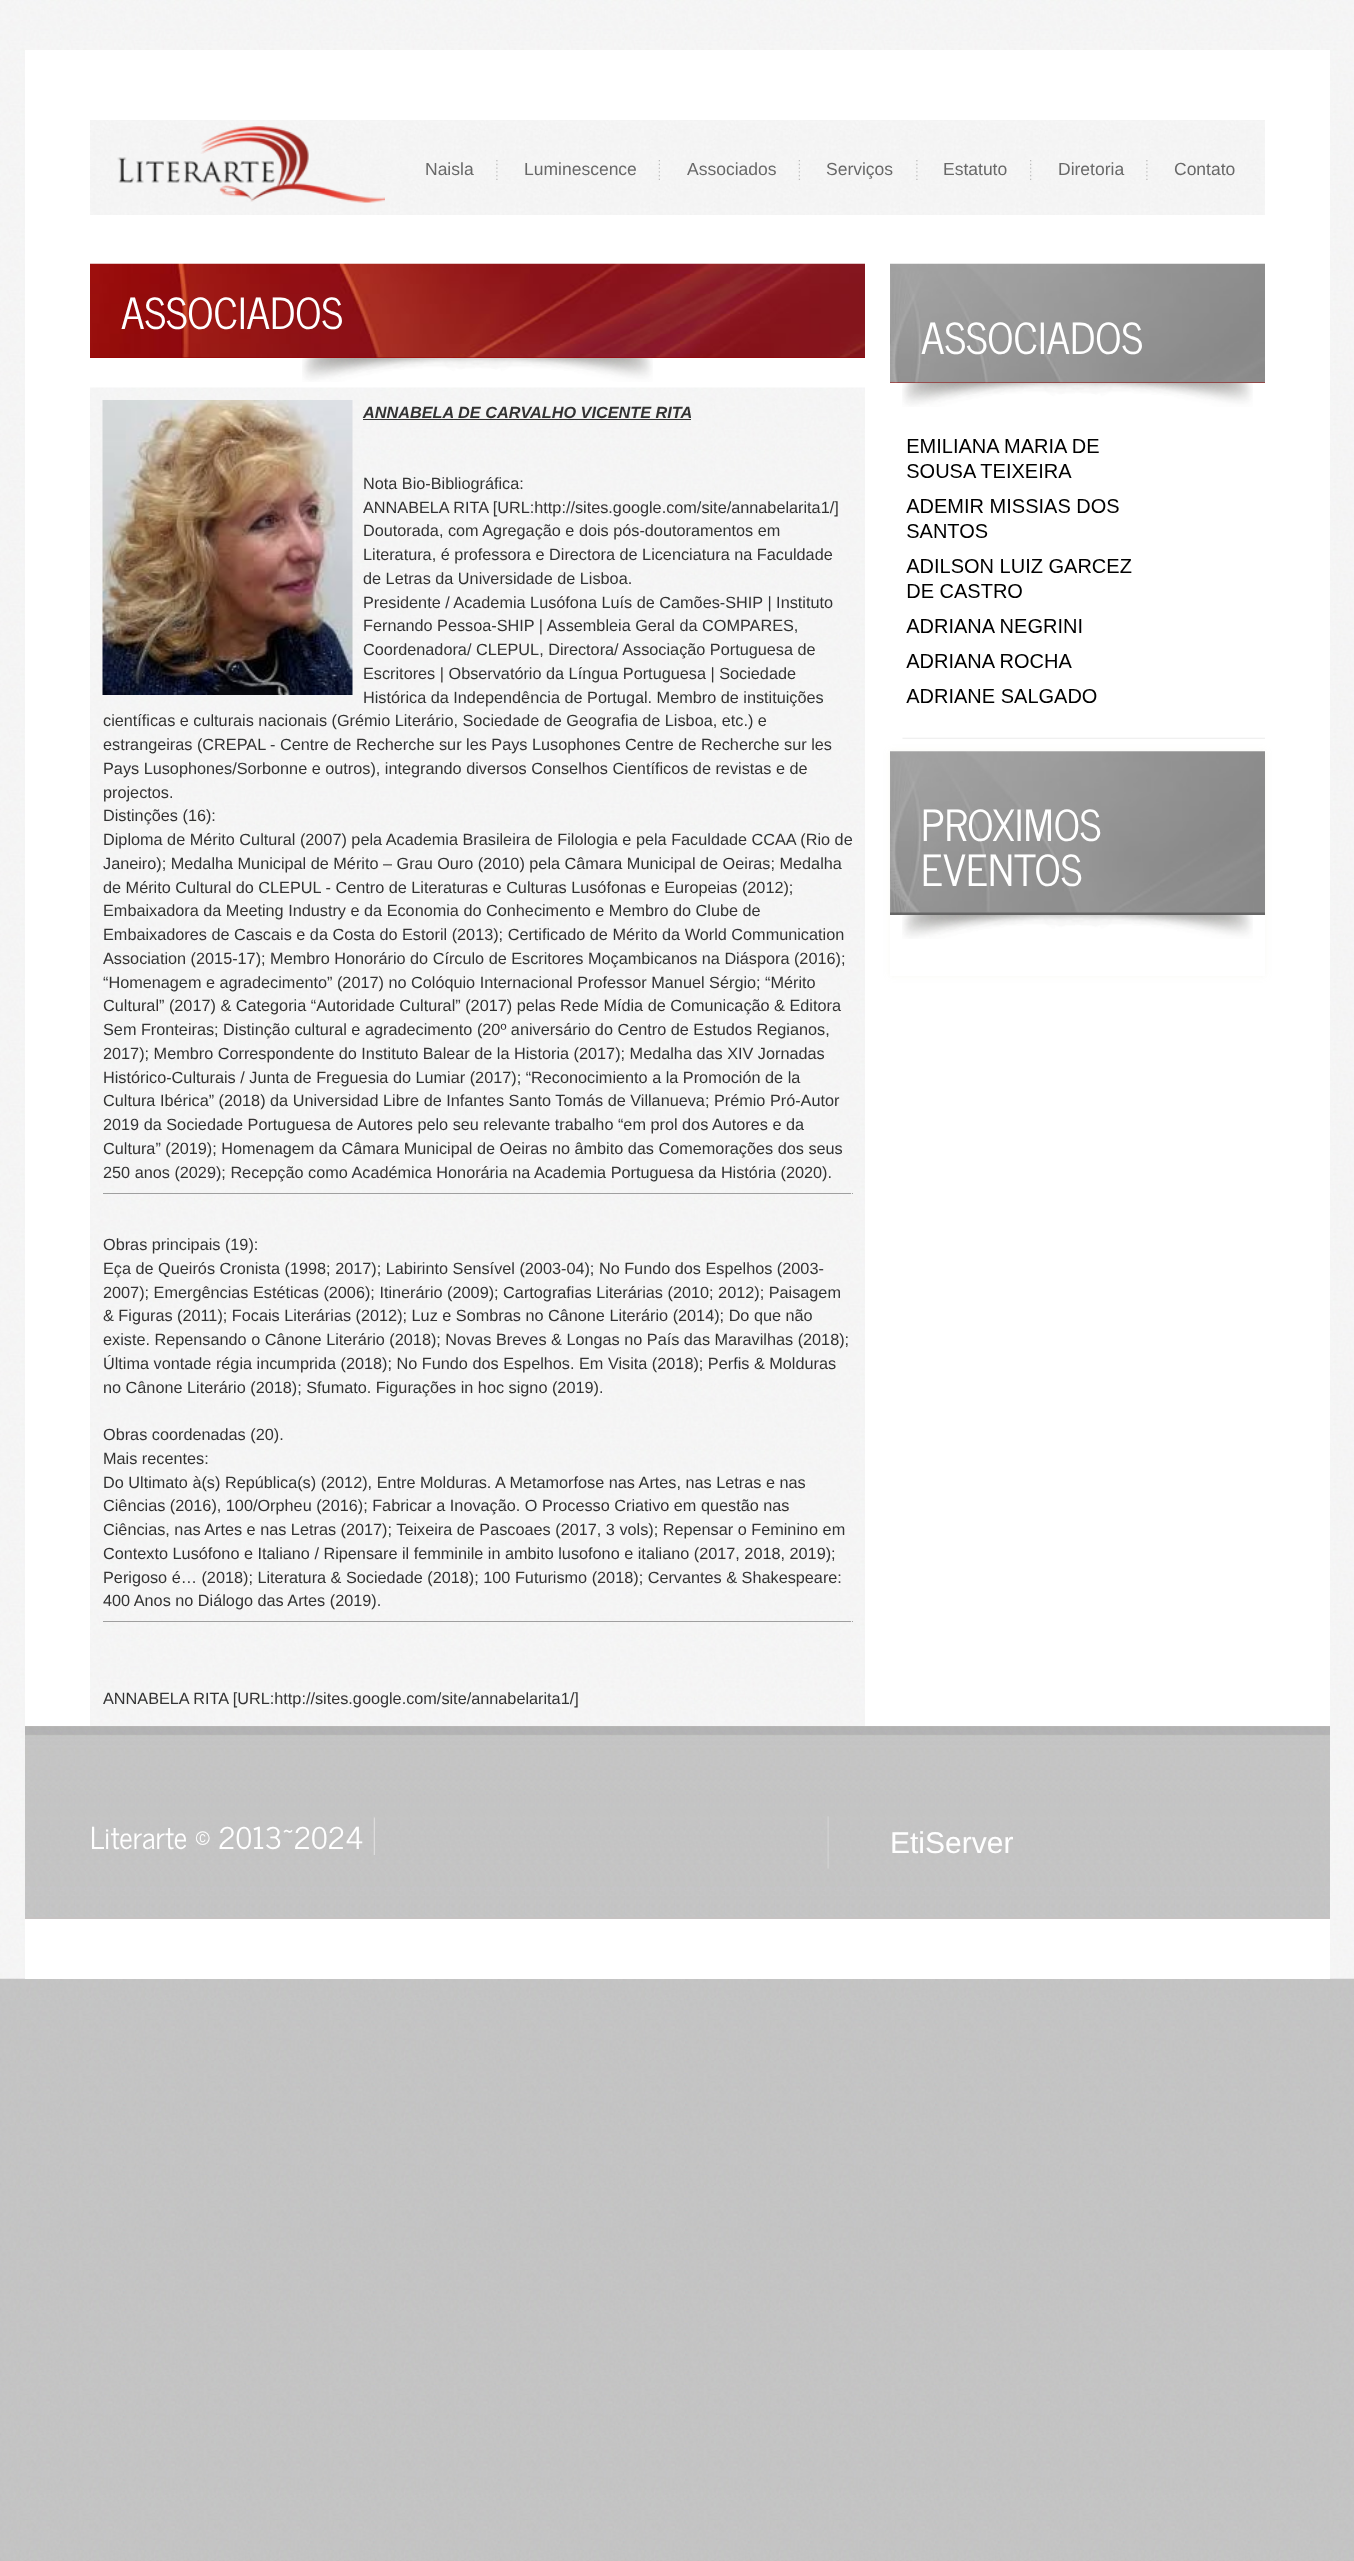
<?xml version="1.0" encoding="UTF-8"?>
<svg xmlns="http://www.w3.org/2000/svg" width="1354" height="2561">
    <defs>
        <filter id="blur1" x="-50%" y="-200%" width="200%" height="500%"><feGaussianBlur stdDeviation="3"/></filter>
    </defs>
    <rect width="100%" height="100%" fill="#FFFFFF"/>
    <image x="0" y="1978" width="1354" height="583" href="img_01.png"/>
    <image x="0" y="0" width="1354" height="1979" href="img_02.png"/>
    <rect x="25" y="50" width="1305" height="1929" fill="#FFFFFF"/>
    <image x="90" y="120" width="1175" height="95" href="img_03.png"/>
    <image x="117" y="126" width="268" height="77" href="img_04.png"/>
    <image x="496" y="160" width="2" height="20" href="img_05.png"/>
    <text x="425" y="175" font-family="Liberation Sans" font-size="17.5" fill="#686868">Naisla</text>
    <image x="658" y="160" width="2" height="20" href="img_06.png"/>
    <text x="524" y="175" font-family="Liberation Sans" font-size="17.5" fill="#686868">Luminescence</text>
    <image x="798" y="160" width="2" height="20" href="img_07.png"/>
    <text x="687" y="175" font-family="Liberation Sans" font-size="17.5" fill="#686868">Associados</text>
    <image x="916" y="160" width="2" height="20" href="img_08.png"/>
    <text x="826" y="175" font-family="Liberation Sans" font-size="17.5" fill="#686868">Serviços</text>
    <image x="1030" y="160" width="2" height="20" href="img_09.png"/>
    <text x="943" y="175" font-family="Liberation Sans" font-size="17.5" fill="#686868">Estatuto</text>
    <image x="1146" y="160" width="2" height="20" href="img_10.png"/>
    <text x="1058" y="175" font-family="Liberation Sans" font-size="17.5" fill="#686868">Diretoria</text>
    <text x="1174" y="175" font-family="Liberation Sans" font-size="17.5" fill="#686868">Contato</text>
    <image x="302" y="358" width="351" height="24" href="img_11.png"/>
    <rect x="90" y="357" width="775" height="1" fill="#990000"/>
    <image x="90" y="263" width="775" height="95" href="img_12.png"/>
    <text x="121" y="329" font-family="News Cycle" font-size="42.5" fill="#FFFFFF">ASSOCIADOS</text>
    <image x="90" y="387" width="775" height="1339" href="img_13.png"/>
    <image x="102" y="400" width="251" height="295" href="img_14.png"/>
    <text x="363" y="418" font-family="Liberation Sans" font-size="16.25" font-weight="700" font-style="italic" fill="#333333">ANNABELA DE CARVALHO VICENTE RITA</text>
    <rect x="363" y="419" width="328" height="1" fill="#333333"/>
    <text font-family="Liberation Sans" font-size="16.25" fill="#333333">
        <tspan x="363" y="489">Nota Bio-Bibliográfica:</tspan>
        <tspan x="363" y="513">ANNABELA RITA [URL:http://sites.google.com/site/annabelarita1/]</tspan>
        <tspan x="363" y="536">Doutorada, com Agregação e dois pós-doutoramentos em</tspan>
        <tspan x="363" y="560">Literatura, é professora e Directora de Licenciatura na Faculdade</tspan>
        <tspan x="363" y="584">de Letras da Universidade de Lisboa.</tspan>
        <tspan x="363" y="608">Presidente / Academia Lusófona Luís de Camões-SHIP | Instituto</tspan>
        <tspan x="363" y="631">Fernando Pessoa-SHIP | Assembleia Geral da COMPARES,</tspan>
        <tspan x="363" y="655">Coordenadora/ CLEPUL, Directora/ Associação Portuguesa de</tspan>
        <tspan x="363" y="679">Escritores | Observatório da Língua Portuguesa | Sociedade</tspan>
        <tspan x="363" y="703">Histórica da Independência de Portugal. Membro de instituições</tspan>
    </text>
    <text font-family="Liberation Sans" font-size="16.25" fill="#333333">
        <tspan x="103" y="726">científicas e culturais nacionais (Grémio Literário, Sociedade de Geografia de Lisboa, etc.) e</tspan>
        <tspan x="103" y="750">estrangeiras (CREPAL - Centre de Recherche sur les Pays Lusophones Centre de Recherche sur les</tspan>
        <tspan x="103" y="774">Pays Lusophones/Sorbonne e outros), integrando diversos Conselhos Científicos de revistas e de</tspan>
        <tspan x="103" y="798">projectos.</tspan>
        <tspan x="103" y="821">Distinções (16):</tspan>
        <tspan x="103" y="845">Diploma de Mérito Cultural (2007) pela Academia Brasileira de Filologia e pela Faculdade CCAA (Rio de</tspan>
        <tspan x="103" y="869">Janeiro); Medalha Municipal de Mérito – Grau Ouro (2010) pela Câmara Municipal de Oeiras; Medalha</tspan>
        <tspan x="103" y="893">de Mérito Cultural do CLEPUL - Centro de Literaturas e Culturas Lusófonas e Europeias (2012);</tspan>
        <tspan x="103" y="916">Embaixadora da Meeting Industry e da Economia do Conhecimento e Membro do Clube de</tspan>
        <tspan x="103" y="940">Embaixadores de Cascais e da Costa do Estoril (2013); Certificado de Mérito da World Communication</tspan>
        <tspan x="103" y="964">Association (2015-17); Membro Honorário do Círculo de Escritores Moçambicanos na Diáspora (2016);</tspan>
        <tspan x="103" y="988">“Homenagem e agradecimento” (2017) no Colóquio Internacional Professor Manuel Sérgio; “Mérito</tspan>
        <tspan x="103" y="1011">Cultural” (2017) &amp; Categoria “Autoridade Cultural” (2017) pelas Rede Mídia de Comunicação &amp; Editora</tspan>
        <tspan x="103" y="1035">Sem Fronteiras; Distinção cultural e agradecimento (20º aniversário do Centro de Estudos Regianos,</tspan>
        <tspan x="103" y="1059">2017); Membro Correspondente do Instituto Balear de la Historia (2017); Medalha das XIV Jornadas</tspan>
        <tspan x="103" y="1083">Histórico-Culturais / Junta de Freguesia do Lumiar (2017); “Reconocimiento a la Promoción de la</tspan>
        <tspan x="103" y="1106">Cultura Ibérica” (2018) da Universidad Libre de Infantes Santo Tomás de Villanueva; Prémio Pró-Autor</tspan>
        <tspan x="103" y="1130">2019 da Sociedade Portuguesa de Autores pelo seu relevante trabalho “em prol dos Autores e da</tspan>
        <tspan x="103" y="1154">Cultura” (2019); Homenagem da Câmara Municipal de Oeiras no âmbito das Comemorações dos seus</tspan>
        <tspan x="103" y="1178">250 anos (2029); Recepção como Académica Honorária na Academia Portuguesa da História (2020).</tspan>
    </text>
    <rect x="103" y="1193" width="750" height="1" fill="#9F9F9F"/>
    <rect x="851" y="1193" width="1" height="1" fill="#EEEEEE"/>
    <text font-family="Liberation Sans" font-size="16.25" fill="#333333">
        <tspan x="103" y="1250">Obras principais (19):</tspan>
        <tspan x="103" y="1274">Eça de Queirós Cronista (1998; 2017); Labirinto Sensível (2003-04); No Fundo dos Espelhos (2003-</tspan>
        <tspan x="103" y="1298">2007); Emergências Estéticas (2006); Itinerário (2009); Cartografias Literárias (2010; 2012); Paisagem</tspan>
        <tspan x="103" y="1321">&amp; Figuras (2011); Focais Literárias (2012); Luz e Sombras no Cânone Literário (2014); Do que não</tspan>
        <tspan x="103" y="1345">existe. Repensando o Cânone Literário (2018); Novas Breves &amp; Longas no País das Maravilhas (2018);</tspan>
        <tspan x="103" y="1369">Última vontade régia incumprida (2018); No Fundo dos Espelhos. Em Visita (2018); Perfis &amp; Molduras</tspan>
        <tspan x="103" y="1393">no Cânone Literário (2018); Sfumato. Figurações in hoc signo (2019).</tspan>
    </text>
    <text font-family="Liberation Sans" font-size="16.25" fill="#333333">
        <tspan x="103" y="1440">Obras coordenadas (20).</tspan>
        <tspan x="103" y="1464">Mais recentes:</tspan>
        <tspan x="103" y="1488">Do Ultimato à(s) República(s) (2012), Entre Molduras. A Metamorfose nas Artes, nas Letras e nas</tspan>
        <tspan x="103" y="1511">Ciências (2016), 100/Orpheu (2016); Fabricar a Inovação. O Processo Criativo em questão nas</tspan>
        <tspan x="103" y="1535">Ciências, nas Artes e nas Letras (2017); Teixeira de Pascoaes (2017, 3 vols); Repensar o Feminino em</tspan>
        <tspan x="103" y="1559">Contexto Lusófono e Italiano / Ripensare il femminile in ambito lusofono e italiano (2017, 2018, 2019);</tspan>
        <tspan x="103" y="1583">Perigoso é… (2018); Literatura &amp; Sociedade (2018); 100 Futurismo (2018); Cervantes &amp; Shakespeare:</tspan>
        <tspan x="103" y="1606">400 Anos no Diálogo das Artes (2019).</tspan>
    </text>
    <rect x="103" y="1621" width="750" height="1" fill="#9F9F9F"/>
    <rect x="851" y="1621" width="1" height="1" fill="#EEEEEE"/>
    <text x="103" y="1704" font-family="Liberation Sans" font-size="16.25" fill="#333333">ANNABELA RITA [URL:http://sites.google.com/site/annabelarita1/]</text>
    <image x="902" y="383" width="351" height="24" href="img_15.png"/>
    <rect x="890" y="382" width="375" height="1" fill="#990000"/>
    <image x="890" y="263" width="375" height="120" href="img_16.png"/>
    <text x="921" y="354" font-family="News Cycle" font-size="42.5" fill="#FFFFFF">ASSOCIADOS</text>
    <image x="906" y="439" width="226" height="264" href="img_17.png"/>
    <image x="902" y="737" width="363" height="2" href="img_18.png"/>
    <rect x="890" y="751" width="375" height="225" fill="#D0D4B9" fill-opacity="0.18" filter="url(#blur1)"/>
    <rect x="890" y="751" width="375" height="225" fill="#FFFFFF"/>
    <image x="902" y="915" width="351" height="24" href="img_19.png"/>
    <image x="890" y="751" width="375" height="164" href="img_20.png"/>
    <text font-family="News Cycle" font-size="42.5" fill="#FFFFFF">
        <tspan x="921" y="841">PROXIMOS</tspan>
        <tspan x="921" y="886">EVENTOS</tspan>
    </text>
    <rect x="25" y="1726" width="1305" height="193" fill="#C6C2C2"/>
    <image x="25" y="1726" width="1305" height="191" href="img_21.png"/>
    <text x="90" y="1849" font-family="News Cycle" font-size="30" fill="#FFFFFF">Literarte © 2013~2024</text>
    <image x="373" y="1817" width="2" height="38" href="img_22.png"/>
    <image x="827" y="1816" width="2" height="53" href="img_23.png"/>
    <text x="890" y="1853" font-family="Liberation Sans" font-size="30" fill="#FFFFFF">EtiServer</text>
</svg>
